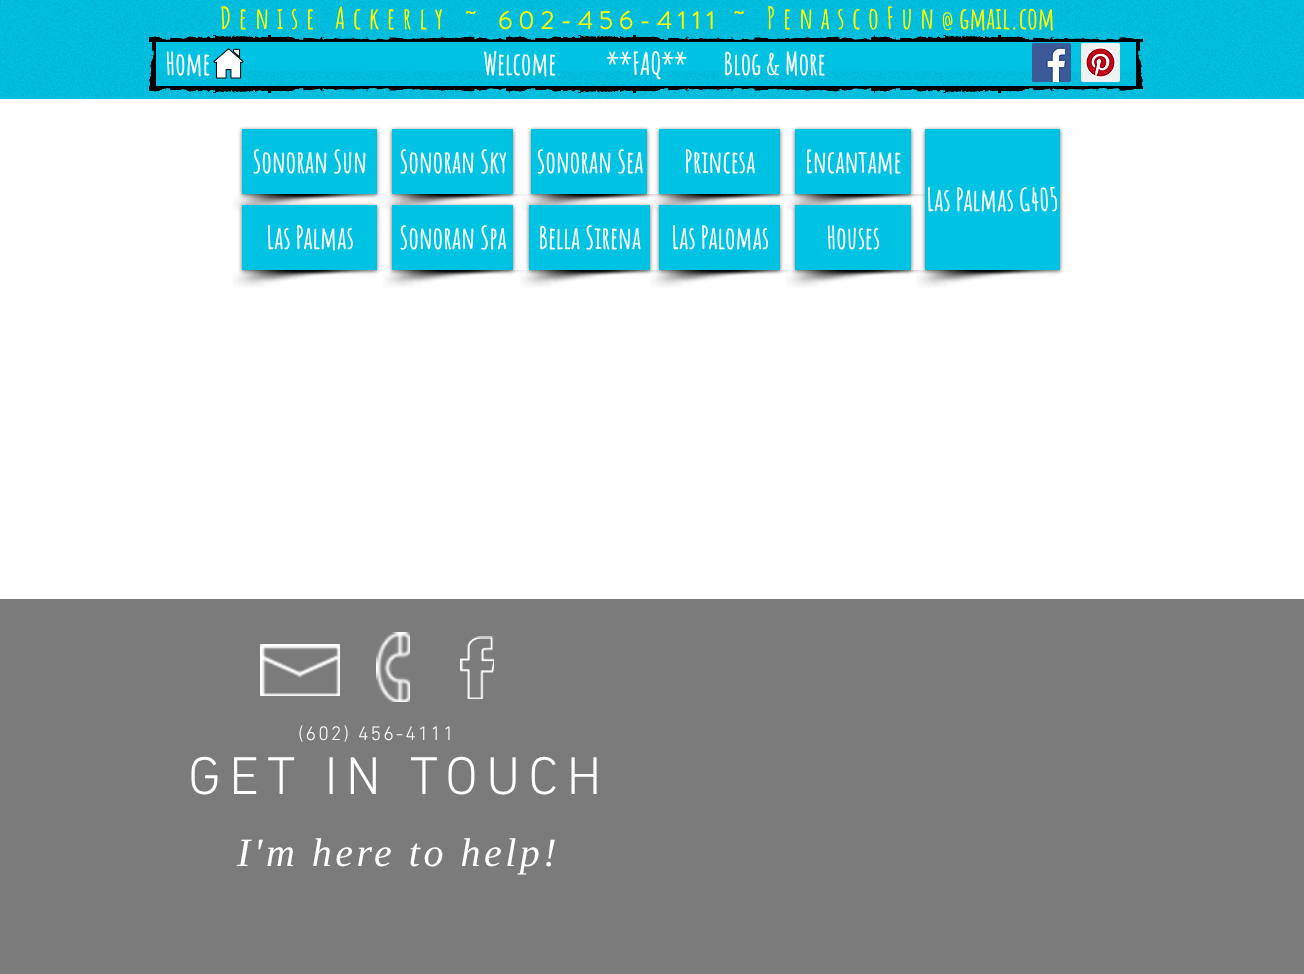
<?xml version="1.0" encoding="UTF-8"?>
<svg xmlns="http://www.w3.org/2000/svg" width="1304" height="974">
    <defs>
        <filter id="blur1" x="-50%" y="-200%" width="200%" height="500%"><feGaussianBlur stdDeviation="2"/></filter>
    </defs>
    <rect width="100%" height="100%" fill="#FFFFFF"/>
    <rect x="0" y="0" width="1304" height="99" fill="#00C2E3"/>
    <image x="0" y="0" width="1304" height="99" href="img_01.png"/>
    <text x="220" y="29" font-family="'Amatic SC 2'" font-size="30" font-weight="700" letter-spacing="7.5" fill="#FFFF00">Denise Ackerly ~</text>
    <text x="498" y="29" font-family="'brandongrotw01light'" font-size="25" font-weight="700" letter-spacing="6.25" fill="#FFFF00">602-456-4111</text>
    <text x="732" y="29" font-family="'Amatic SC 2'" font-size="30" font-weight="700" letter-spacing="7.5" fill="#FFFF00">~ PenascoFun</text>
    <text x="942" y="29" font-family="'Amatic SC 2'" font-size="20" font-weight="700" letter-spacing="5" fill="#FFFF00">@</text>
    <text x="959" y="29" font-family="'Amatic SC 2'" font-size="30" font-weight="700" fill="#FFFF00">gmail.com</text>
    <rect x="156" y="42" width="980" height="29" fill="#00C2E3"/>
    <text x="165" y="75" font-family="Amatic SC" font-size="30" font-weight="700" fill="#FFFFFF">Home</text>
    <image x="213" y="48" width="31" height="31" href="img_02.png"/>
    <image x="149" y="35" width="994" height="7" href="img_03.png"/>
    <image x="149" y="42" width="7" height="44" href="img_04.png"/>
    <text x="483" y="75" font-family="Amatic SC" font-size="30" font-weight="700" fill="#FFFFFF">Welcome</text>
    <rect x="583" y="71" width="1" height="15" fill="#00C2E3"/>
    <text x="606" y="75" font-family="Amatic SC" font-size="30" font-weight="700" fill="#FFFFFF">**FAQ**</text>
    <rect x="710" y="71" width="1" height="15" fill="#00C2E3"/>
    <text x="723" y="75" font-family="Amatic SC" font-size="30" font-weight="700" fill="#FFFFFF">Blog &amp; More</text>
    <image x="1136" y="42" width="7" height="44" href="img_05.png"/>
    <image x="149" y="86" width="994" height="7" href="img_06.png"/>
    <image x="1032" y="43" width="39" height="39" href="img_07.png"/>
    <image x="1081" y="43" width="39" height="39" href="img_08.png"/>
    <image x="233" y="194" width="154" height="17" href="img_09.png"/>
    <rect x="242" y="130" width="135" height="65" fill="#000000" fill-opacity="0.6" filter="url(#blur1)"/>
    <rect x="242" y="129" width="135" height="65" fill="#00C2E3"/>
    <text x="252" y="173" font-family="Amatic SC" font-size="30" font-weight="700" fill="#FFFFFF">Sonoran Sun</text>
    <image x="233" y="270" width="154" height="18" href="img_15.png"/>
    <rect x="242" y="206" width="135" height="65" fill="#000000" fill-opacity="0.6" filter="url(#blur1)"/>
    <image x="383" y="194" width="154" height="17" href="img_10.png"/>
    <rect x="392" y="130" width="121" height="65" fill="#000000" fill-opacity="0.6" filter="url(#blur1)"/>
    <rect x="392" y="129" width="121" height="65" fill="#00C2E3"/>
    <text x="399" y="173" font-family="Amatic SC" font-size="30" font-weight="700" fill="#FFFFFF">Sonoran Sky</text>
    <image x="522" y="194" width="154" height="17" href="img_11.png"/>
    <rect x="531" y="130" width="116" height="65" fill="#000000" fill-opacity="0.6" filter="url(#blur1)"/>
    <rect x="531" y="129" width="116" height="65" fill="#00C2E3"/>
    <text x="536" y="173" font-family="Amatic SC" font-size="30" font-weight="700" fill="#FFFFFF">Sonoran Sea</text>
    <image x="650" y="194" width="154" height="17" href="img_12.png"/>
    <rect x="659" y="130" width="121" height="65" fill="#000000" fill-opacity="0.6" filter="url(#blur1)"/>
    <rect x="659" y="129" width="121" height="65" fill="#00C2E3"/>
    <text x="684" y="173" font-family="Amatic SC" font-size="30" font-weight="700" fill="#FFFFFF">Princesa</text>
    <image x="383" y="270" width="154" height="18" href="img_16.png"/>
    <image x="520" y="270" width="154" height="18" href="img_17.png"/>
    <rect x="529" y="206" width="121" height="65" fill="#000000" fill-opacity="0.6" filter="url(#blur1)"/>
    <image x="650" y="270" width="154" height="18" href="img_18.png"/>
    <rect x="659" y="206" width="121" height="65" fill="#000000" fill-opacity="0.6" filter="url(#blur1)"/>
    <image x="786" y="194" width="139" height="17" href="img_13.png"/>
    <rect x="795" y="130" width="116" height="65" fill="#000000" fill-opacity="0.6" filter="url(#blur1)"/>
    <rect x="795" y="129" width="116" height="65" fill="#00C2E3"/>
    <text x="805" y="173" font-family="Amatic SC" font-size="30" font-weight="700" fill="#FFFFFF">Encantame</text>
    <image x="786" y="270" width="154" height="18" href="img_19.png"/>
    <rect x="795" y="206" width="116" height="65" fill="#000000" fill-opacity="0.6" filter="url(#blur1)"/>
    <image x="916" y="270" width="154" height="18" href="img_14.png"/>
    <rect x="925" y="130" width="135" height="141" fill="#000000" fill-opacity="0.6" filter="url(#blur1)"/>
    <rect x="925" y="129" width="135" height="141" fill="#00C2E3"/>
    <text x="926" y="211" font-family="Amatic SC" font-size="30" font-weight="700" fill="#FFFFFF">Las Palmas G405</text>
    <rect x="242" y="205" width="135" height="65" fill="#00C2E3"/>
    <text x="266" y="249" font-family="Amatic SC" font-size="30" font-weight="700" fill="#FFFFFF">Las Palmas</text>
    <rect x="392" y="206" width="121" height="65" fill="#000000" fill-opacity="0.6" filter="url(#blur1)"/>
    <rect x="392" y="205" width="121" height="65" fill="#00C2E3"/>
    <text x="399" y="249" font-family="Amatic SC" font-size="30" font-weight="700" fill="#FFFFFF">Sonoran Spa</text>
    <rect x="529" y="205" width="121" height="65" fill="#00C2E3"/>
    <text x="538" y="249" font-family="Amatic SC" font-size="30" font-weight="700" fill="#FFFFFF">Bella Sirena</text>
    <rect x="659" y="205" width="121" height="65" fill="#00C2E3"/>
    <text x="671" y="249" font-family="Amatic SC" font-size="30" font-weight="700" fill="#FFFFFF">Las Palomas</text>
    <rect x="795" y="205" width="116" height="65" fill="#00C2E3"/>
    <text x="826" y="249" font-family="Amatic SC" font-size="30" font-weight="700" fill="#FFFFFF">Houses</text>
    <rect x="0" y="599" width="1304" height="375" fill="#7B7B7B"/>
    <image x="260" y="644" width="80" height="52" href="img_20.png"/>
    <image x="376" y="632" width="34" height="70" href="img_21.png"/>
    <image x="460" y="636" width="34" height="63" href="img_22.png"/>
    <text x="298" y="740" font-family="'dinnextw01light'" font-size="20" font-weight="300" letter-spacing="2" fill="#FFFFFF">(602) 456-4111</text>
    <text x="188" y="794" font-family="'dinnextw01light'" font-size="54" font-weight="300" letter-spacing="8.1" fill="#FFFFFF">GET IN TOUCH</text>
    <text x="237" y="866" font-family="Liberation Serif" font-size="40" font-style="italic" letter-spacing="3.5" fill="#FFFFFF">I'm here to help!</text>
</svg>
